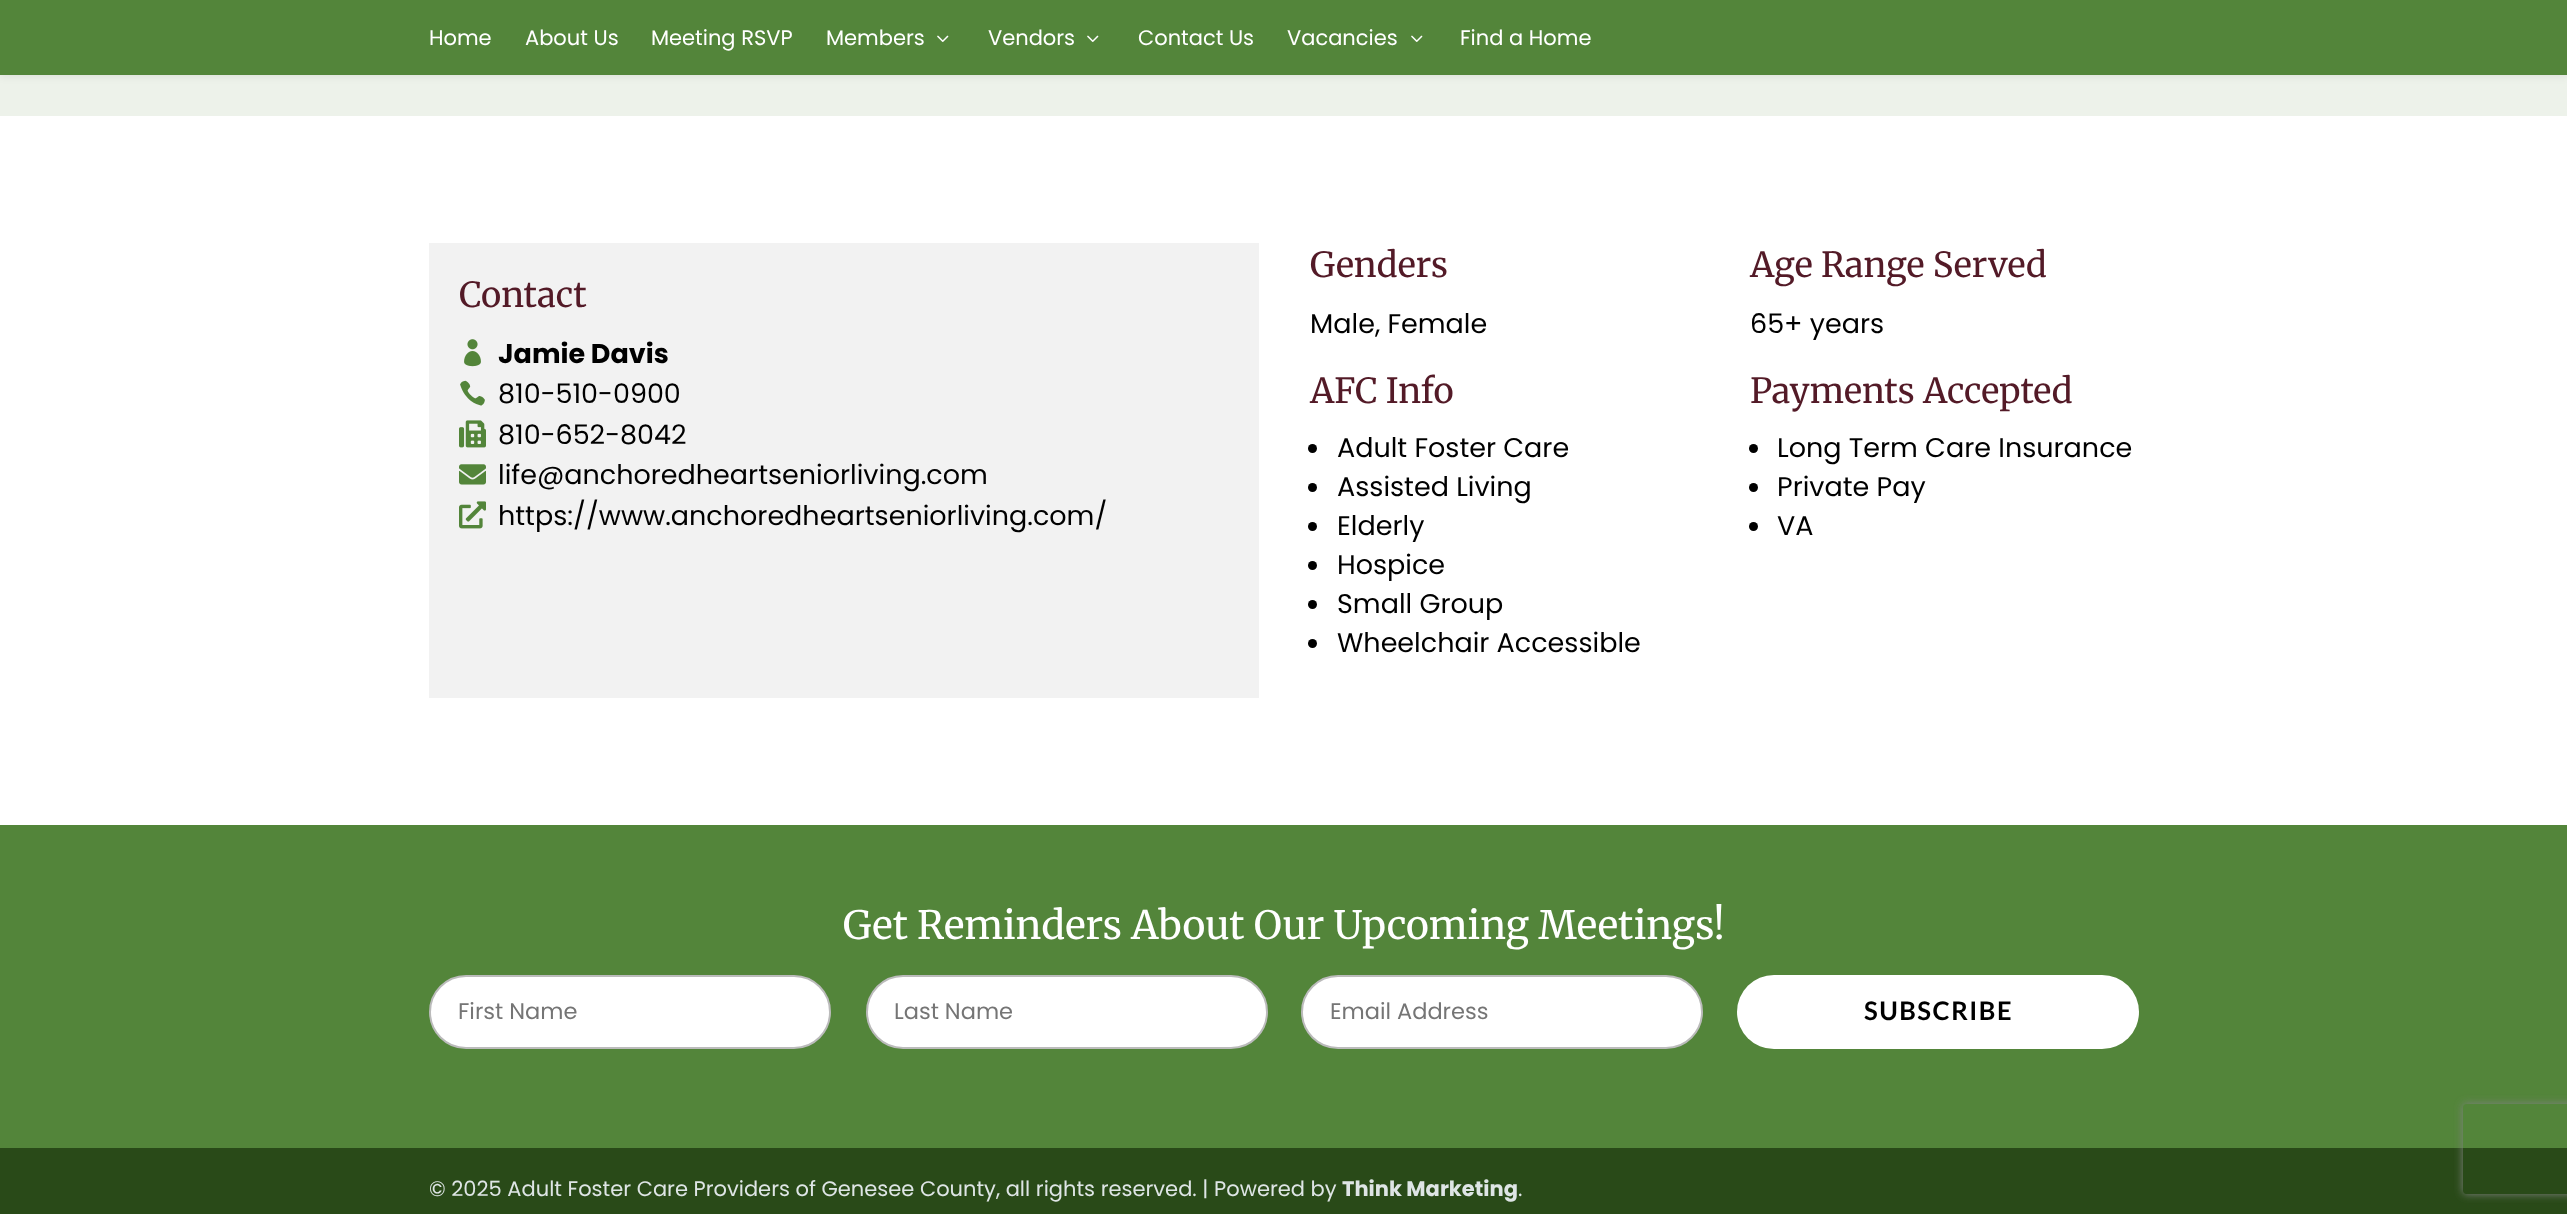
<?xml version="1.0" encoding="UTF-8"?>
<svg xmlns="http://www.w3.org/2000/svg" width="2567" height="1214">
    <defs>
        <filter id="blur1" x="-50%" y="-200%" width="200%" height="500%"><feGaussianBlur stdDeviation="5"/></filter>
        <clipPath id="clip1"><path d="M 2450 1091 H 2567 V 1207 H 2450 Z M 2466 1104 H 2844 C 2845.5 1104 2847 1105.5 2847 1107 V 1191 C 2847 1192.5 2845.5 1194 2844 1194 H 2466 C 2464.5 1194 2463 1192.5 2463 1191 V 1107 C 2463 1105.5 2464.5 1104 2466 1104 Z" clip-rule="evenodd"/></clipPath>
        <filter id="blur2" x="-50%" y="-200%" width="200%" height="500%"><feGaussianBlur stdDeviation="4"/></filter>
    </defs>
    <rect width="100%" height="100%" fill="#FFFFFF"/>
    <rect x="0" y="75" width="2567" height="41" fill="#EDF2EA"/>
    <rect x="0" y="0" width="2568" height="75" fill="#000000" fill-opacity="0.1" filter="url(#blur1)"/>
    <rect x="0" y="0" width="2567" height="75" fill="#53853A"/>
    <text x="429" y="45" font-family="Poppins" font-size="21" fill="#FFFFFF">Home</text>
    <text x="525" y="45" font-family="Poppins" font-size="21" fill="#FFFFFF">About Us</text>
    <text x="651" y="45" font-family="Poppins" font-size="21" fill="#FFFFFF">Meeting RSVP</text>
    <text x="826" y="45" font-family="Poppins" font-size="21" fill="#FFFFFF">Members</text>
    <image x="937" y="35" width="12" height="7" href="img_01.png"/>
    <text x="988" y="45" font-family="Poppins" font-size="21" fill="#FFFFFF">Vendors</text>
    <image x="1087" y="35" width="12" height="7" href="img_01.png"/>
    <text x="1138" y="45" font-family="Poppins" font-size="21" fill="#FFFFFF">Contact Us</text>
    <text x="1287" y="45" font-family="Poppins" font-size="21" fill="#FFFFFF">Vacancies</text>
    <image x="1411" y="35" width="12" height="7" href="img_01.png"/>
    <text x="1460" y="45" font-family="Poppins" font-size="21" fill="#FFFFFF">Find a Home</text>
    <rect x="429" y="243" width="830" height="455" fill="#F2F2F2"/>
    <text x="459" y="307" font-family="Merriweather" font-size="34.5" fill="#531A27">Contact</text>
    <image x="464" y="339" width="17" height="28" href="img_02.png"/>
    <text x="498" y="363" font-family="Poppins" font-size="27" font-weight="700" fill="#000000">Jamie Davis</text>
    <image x="460" y="380" width="25" height="26" href="img_03.png"/>
    <text x="498" y="403" font-family="Poppins" font-size="27" fill="#000000">810-510-0900</text>
    <image x="459" y="420" width="27" height="28" href="img_04.png"/>
    <text x="498" y="444" font-family="Poppins" font-size="27" fill="#000000">810-652-8042</text>
    <image x="459" y="464" width="27" height="21" href="img_05.png"/>
    <text x="498" y="484" font-family="Poppins" font-size="27" fill="#000000">life@anchoredheartseniorliving.com</text>
    <image x="459" y="501" width="27" height="28" href="img_06.png"/>
    <text x="498" y="525" font-family="Poppins" font-size="27" fill="#000000">https://www.anchoredheartseniorliving.com/</text>
    <text x="1310" y="277" font-family="Merriweather" font-size="34.5" fill="#531A27">Genders</text>
    <text x="1310" y="333" font-family="Poppins" font-size="27" fill="#000000">Male, Female</text>
    <text x="1310" y="403" font-family="Merriweather" font-size="34.5" fill="#531A27">AFC Info</text>
    <circle cx="1312.5" cy="448.5" r="4.5" fill="#000000"/>
    <text x="1337" y="457" font-family="Poppins" font-size="27" fill="#000000">Adult Foster Care</text>
    <circle cx="1312.5" cy="487.5" r="4.5" fill="#000000"/>
    <text x="1337" y="496" font-family="Poppins" font-size="27" fill="#000000">Assisted Living</text>
    <circle cx="1312.5" cy="526.5" r="4.5" fill="#000000"/>
    <text x="1337" y="535" font-family="Poppins" font-size="27" fill="#000000">Elderly</text>
    <circle cx="1312.5" cy="565.5" r="4.5" fill="#000000"/>
    <text x="1337" y="574" font-family="Poppins" font-size="27" fill="#000000">Hospice</text>
    <circle cx="1312.5" cy="604.5" r="4.5" fill="#000000"/>
    <text x="1337" y="613" font-family="Poppins" font-size="27" fill="#000000">Small Group</text>
    <circle cx="1312.5" cy="643.5" r="4.5" fill="#000000"/>
    <text x="1337" y="652" font-family="Poppins" font-size="27" fill="#000000">Wheelchair Accessible</text>
    <text x="1750" y="277" font-family="Merriweather" font-size="34.5" fill="#531A27">Age Range Served</text>
    <text x="1750" y="333" font-family="Poppins" font-size="27" fill="#000000">65+ years</text>
    <text x="1750" y="403" font-family="Merriweather" font-size="34.5" fill="#531A27">Payments Accepted</text>
    <circle cx="1753.5" cy="448.5" r="4.5" fill="#000000"/>
    <text x="1777" y="457" font-family="Poppins" font-size="27" fill="#000000">Long Term Care Insurance</text>
    <circle cx="1753.5" cy="487.5" r="4.5" fill="#000000"/>
    <text x="1777" y="496" font-family="Poppins" font-size="27" fill="#000000">Private Pay</text>
    <circle cx="1753.5" cy="526.5" r="4.5" fill="#000000"/>
    <text x="1777" y="535" font-family="Poppins" font-size="27" fill="#000000">VA</text>
    <rect x="0" y="825" width="2567" height="323" fill="#53853A"/>
    <text x="843" y="939" font-family="Merriweather" font-size="39" fill="#FFFFFF">Get Reminders About Our Upcoming Meetings!</text>
    <rect x="430" y="976" width="400" height="72" rx="36" fill="#FFFFFF" stroke="#BBBBBB" stroke-width="2"/>
    <text x="458" y="1019" font-family="Poppins" font-size="22.5" fill="#757575">First Name</text>
    <rect x="867" y="976" width="400" height="72" rx="36" fill="#FFFFFF" stroke="#BBBBBB" stroke-width="2"/>
    <text x="894" y="1019" font-family="Poppins" font-size="22.5" fill="#757575">Last Name</text>
    <rect x="1302" y="976" width="400" height="72" rx="36" fill="#FFFFFF" stroke="#BBBBBB" stroke-width="2"/>
    <text x="1330" y="1019" font-family="Poppins" font-size="22.5" fill="#757575">Email Address</text>
    <rect x="1737" y="975" width="402" height="74" rx="37" fill="#FFFFFF"/>
    <text x="1864" y="1020" font-family="Lato" font-size="25.5" font-weight="700" letter-spacing="1.5" fill="#000000">SUBSCRIBE</text>
    <rect x="0" y="1148" width="2567" height="66" fill="#294A18"/>
    <text x="429" y="1196" font-family="Poppins" font-size="21" fill="#DEE5E5">© 2025 Adult Foster Care Providers of Genesee County, all rights reserved. | Powered by</text>
    <text x="1342" y="1196" font-family="Poppins" font-size="21" font-weight="700" fill="#DEE5E5">Think Marketing</text>
    <text x="1518" y="1196" font-family="Poppins" font-size="21" fill="#DEE5E5">.</text>
    <g clip-path="url(#clip1)">
        <rect x="2463" y="1104" width="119" height="90" rx="3" fill="#808080" filter="url(#blur2)"/>
    </g>
</svg>
